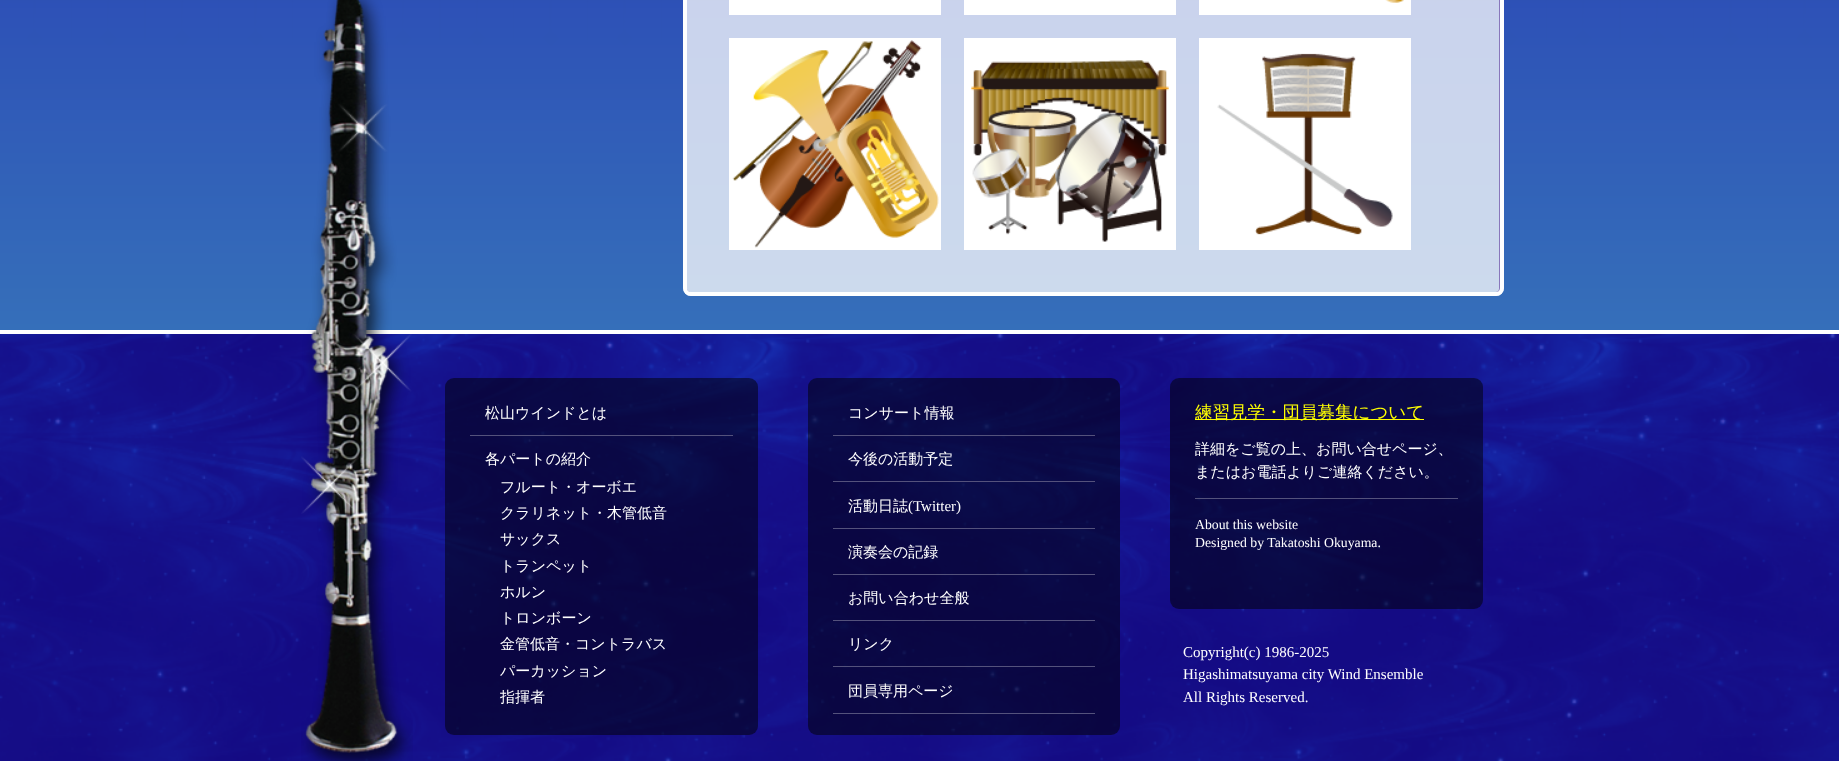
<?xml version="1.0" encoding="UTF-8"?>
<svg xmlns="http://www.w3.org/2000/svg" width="1839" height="761">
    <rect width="100%" height="100%" fill="#FFFFFF"/>
    <image x="0" y="0" width="1839" height="330" href="img_01.png"/>
    <rect x="683" y="-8" width="821" height="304" rx="8" fill="#FFFFFF" fill-opacity="0.75"/>
    <rect x="686.5" y="-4.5" width="813" height="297" rx="3.5" fill="none" stroke="#8877BB"/>
    <rect x="685" y="-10" width="817" height="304" rx="6" fill="none" stroke="#FFFFFF" stroke-width="4"/>
    <rect x="729" y="0" width="212" height="15" fill="#FFFFFF"/>
    <rect x="964" y="0" width="212" height="15" fill="#FFFFFF"/>
    <rect x="1199" y="0" width="212" height="15" fill="#FFFFFF"/>
    <image x="1385" y="0" width="19" height="3" href="img_02.png"/>
    <rect x="729" y="38" width="212" height="212" fill="#FFFFFF"/>
    <image x="732" y="40" width="207" height="208" href="img_03.png"/>
    <rect x="964" y="38" width="212" height="212" fill="#FFFFFF"/>
    <image x="971" y="60" width="198" height="182" href="img_04.png"/>
    <rect x="1199" y="38" width="212" height="212" fill="#FFFFFF"/>
    <image x="1217" y="53" width="176" height="182" href="img_05.png"/>
    <image x="0" y="334" width="1839" height="427" href="img_06.png"/>
    <image x="301" y="0" width="112" height="761" href="img_07.png"/>
    <rect x="445" y="378" width="313" height="357" rx="9" fill="#000000" fill-opacity="0.5"/>
    <rect x="470" y="435" width="263" height="1" fill="#54527C"/>
    <text x="485" y="418" font-family="WenQuanYi Zen Hei" font-size="15" font-weight="500" fill="#FFFFFF">松山ウインドとは</text>
    <text x="485" y="464" font-family="WenQuanYi Zen Hei" font-size="15" font-weight="500" fill="#FFFFFF">各パートの紹介</text>
    <text font-family="WenQuanYi Zen Hei" font-size="15" font-weight="500" fill="#FFFFFF">
        <tspan x="500" y="492">フルート・オーボエ</tspan>
        <tspan x="500" y="518">クラリネット・木管低音</tspan>
        <tspan x="500" y="544">サックス</tspan>
        <tspan x="500" y="571">トランペット</tspan>
        <tspan x="500" y="597">ホルン</tspan>
        <tspan x="500" y="623">トロンボーン</tspan>
        <tspan x="500" y="649">金管低音・コントラバス</tspan>
        <tspan x="500" y="676">パーカッション</tspan>
        <tspan x="500" y="702">指揮者</tspan>
    </text>
    <rect x="808" y="378" width="312" height="357" rx="9" fill="#000000" fill-opacity="0.5"/>
    <rect x="833" y="435" width="262" height="1" fill="#54527C"/>
    <text x="848" y="418" font-family="WenQuanYi Zen Hei" font-size="15" font-weight="500" fill="#FFFFFF">コンサート情報</text>
    <rect x="833" y="481" width="262" height="1" fill="#54527C"/>
    <text x="848" y="464" font-family="WenQuanYi Zen Hei" font-size="15" font-weight="500" fill="#FFFFFF">今後の活動予定</text>
    <rect x="833" y="528" width="262" height="1" fill="#54527C"/>
    <text x="848" y="511" font-family="WenQuanYi Zen Hei" font-size="15" font-weight="500" fill="#FFFFFF">活動日誌</text>
    <text x="908" y="511" font-family="Liberation Serif" font-size="15" fill="#FFFFFF">(Twitter)</text>
    <rect x="833" y="574" width="262" height="1" fill="#54527C"/>
    <text x="848" y="557" font-family="WenQuanYi Zen Hei" font-size="15" font-weight="500" fill="#FFFFFF">演奏会の記録</text>
    <rect x="833" y="620" width="262" height="1" fill="#54527C"/>
    <text x="848" y="603" font-family="WenQuanYi Zen Hei" font-size="15" font-weight="500" fill="#FFFFFF">お問い合わせ全般</text>
    <rect x="833" y="666" width="262" height="1" fill="#54527C"/>
    <text x="848" y="649" font-family="WenQuanYi Zen Hei" font-size="15" font-weight="500" fill="#FFFFFF">リンク</text>
    <rect x="833" y="713" width="262" height="1" fill="#54527C"/>
    <text x="848" y="696" font-family="WenQuanYi Zen Hei" font-size="15" font-weight="500" fill="#FFFFFF">団員専用ページ</text>
    <rect x="1170" y="378" width="313" height="231" rx="9" fill="#000000" fill-opacity="0.5"/>
    <rect x="1195" y="419" width="229" height="1" fill="#FFFF00"/>
    <text x="1195" y="418" font-family="WenQuanYi Zen Hei" font-size="17.5" font-weight="500" fill="#FFFF00">練習見学・団員募集について</text>
    <rect x="1195" y="498" width="263" height="1" fill="#54527C"/>
    <text font-family="WenQuanYi Zen Hei" font-size="15" font-weight="500" fill="#FFFFFF">
        <tspan x="1195" y="454">詳細をご覧の上、お問い合せページ、</tspan>
        <tspan x="1195" y="477">またはお電話よりご連絡ください。</tspan>
    </text>
    <text font-family="Liberation Serif" font-size="13.75" fill="#FFFFFF">
        <tspan x="1195" y="529">About this website</tspan>
        <tspan x="1195" y="547">Designed by Takatoshi Okuyama.</tspan>
    </text>
    <text font-family="Liberation Serif" font-size="15" fill="#FFFFFF">
        <tspan x="1183" y="657">Copyright(c) 1986-2025</tspan>
        <tspan x="1183" y="679">Higashimatsuyama city Wind Ensemble</tspan>
        <tspan x="1183" y="702">All Rights Reserved.</tspan>
    </text>
</svg>
